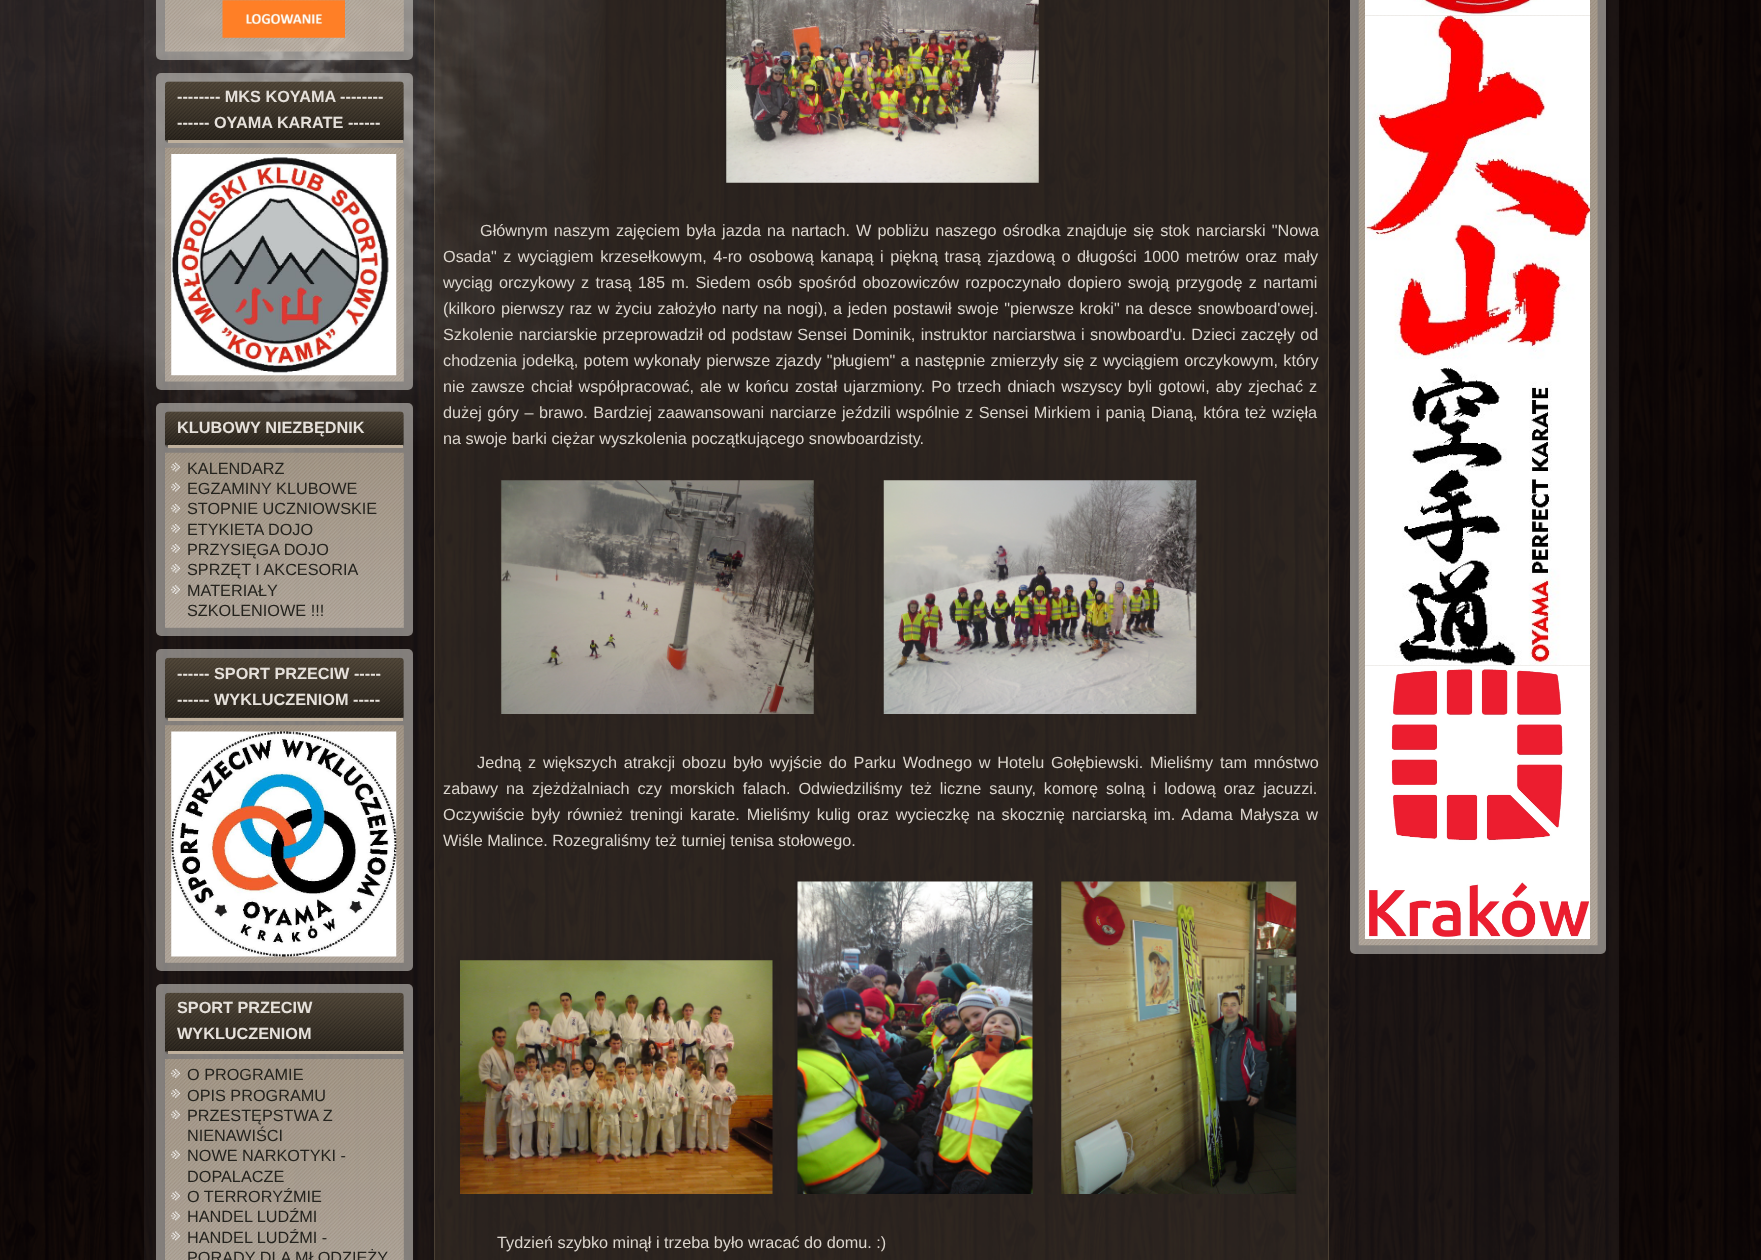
<?xml version="1.0" encoding="UTF-8"?>
<svg xmlns="http://www.w3.org/2000/svg" width="1761" height="1260">
    <rect width="100%" height="100%" fill="#050005"/>
    <image x="0" y="0" width="1761" height="1260" href="img_01.png"/>
    <rect x="144" y="0" width="1475" height="1260" fill="#F2F0ED" fill-opacity="0.06"/>
    <rect x="156" y="-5" width="257" height="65" rx="5" fill="#ECE9E4" fill-opacity="0.5"/>
    <image x="165" y="0" width="239" height="52" href="img_02.png"/>
    <image x="222" y="0" width="123" height="38" href="img_03.png"/>
    <rect x="156" y="73" width="257" height="317" rx="5" fill="#ECE9E4" fill-opacity="0.5"/>
    <image x="165" y="81" width="239" height="62" href="img_04.png"/>
    <rect x="168" y="140" width="235" height="3" fill="#BFB09C"/>
    <text font-family="Liberation Sans" font-size="16.25" font-weight="700" fill="#E6E1DB">
        <tspan x="177" y="102">-------- MKS KOYAMA --------</tspan>
        <tspan x="177" y="128">------ OYAMA KARATE ------</tspan>
    </text>
    <image x="165" y="147" width="239" height="235" href="img_05.png"/>
    <image x="171" y="154" width="226" height="222" href="img_06.png"/>
    <rect x="156" y="403" width="257" height="233" rx="5" fill="#ECE9E4" fill-opacity="0.5"/>
    <image x="165" y="411" width="239" height="37" href="img_07.png"/>
    <rect x="168" y="445" width="235" height="3" fill="#BFB09C"/>
    <text x="177" y="433" font-family="Liberation Sans" font-size="16.25" font-weight="700" fill="#E6E1DB">KLUBOWY NIEZBĘDNIK</text>
    <image x="165" y="452" width="239" height="176" href="img_08.png"/>
    <image x="171" y="462" width="9" height="10" href="img_09.png"/>
    <text x="187" y="474" font-family="Liberation Sans" font-size="16.25" fill="#24231E">KALENDARZ</text>
    <image x="171" y="482" width="9" height="10" href="img_10.png"/>
    <text x="187" y="494" font-family="Liberation Sans" font-size="16.25" fill="#24231E">EGZAMINY KLUBOWE</text>
    <image x="171" y="504" width="9" height="9" href="img_11.png"/>
    <text x="187" y="514" font-family="Liberation Sans" font-size="16.25" fill="#24231E">STOPNIE UCZNIOWSKIE</text>
    <image x="171" y="524" width="9" height="9" href="img_12.png"/>
    <text x="187" y="535" font-family="Liberation Sans" font-size="16.25" fill="#24231E">ETYKIETA DOJO</text>
    <image x="171" y="544" width="9" height="9" href="img_13.png"/>
    <text x="187" y="555" font-family="Liberation Sans" font-size="16.25" fill="#24231E">PRZYSIĘGA DOJO</text>
    <image x="171" y="564" width="9" height="9" href="img_14.png"/>
    <text x="187" y="575" font-family="Liberation Sans" font-size="16.25" fill="#24231E">SPRZĘT I AKCESORIA</text>
    <image x="171" y="585" width="9" height="9" href="img_15.png"/>
    <text font-family="Liberation Sans" font-size="16.25" fill="#24231E">
        <tspan x="187" y="596">MATERIAŁY</tspan>
        <tspan x="187" y="616">SZKOLENIOWE !!!</tspan>
    </text>
    <rect x="156" y="649" width="257" height="322" rx="5" fill="#ECE9E4" fill-opacity="0.5"/>
    <image x="165" y="657" width="239" height="63" href="img_16.png"/>
    <rect x="168" y="718" width="235" height="3" fill="#BFB09C"/>
    <text font-family="Liberation Sans" font-size="16.25" font-weight="700" fill="#E6E1DB">
        <tspan x="177" y="679">------ SPORT PRZECIW -----</tspan>
        <tspan x="177" y="705">------ WYKLUCZENIOM -----</tspan>
    </text>
    <image x="165" y="725" width="239" height="238" href="img_17.png"/>
    <image x="171" y="731" width="226" height="226" href="img_18.png"/>
    <rect x="156" y="984" width="257" height="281" rx="5" fill="#ECE9E4" fill-opacity="0.5"/>
    <image x="165" y="992" width="239" height="62" href="img_19.png"/>
    <rect x="168" y="1051" width="235" height="3" fill="#BFB09C"/>
    <text font-family="Liberation Sans" font-size="16.25" font-weight="700" fill="#E6E1DB">
        <tspan x="177" y="1013">SPORT PRZECIW</tspan>
        <tspan x="177" y="1039">WYKLUCZENIOM</tspan>
    </text>
    <image x="165" y="1059" width="239" height="201" href="img_20.png"/>
    <image x="171" y="1069" width="9" height="9" href="img_21.png"/>
    <text x="187" y="1080" font-family="Liberation Sans" font-size="16.25" fill="#24231E">O PROGRAMIE</text>
    <image x="171" y="1089" width="9" height="9" href="img_22.png"/>
    <text x="187" y="1101" font-family="Liberation Sans" font-size="16.25" fill="#24231E">OPIS PROGRAMU</text>
    <image x="171" y="1110" width="9" height="9" href="img_23.png"/>
    <text font-family="Liberation Sans" font-size="16.25" fill="#24231E">
        <tspan x="187" y="1121">PRZESTĘPSTWA Z</tspan>
        <tspan x="187" y="1141">NIENAWIŚCI</tspan>
    </text>
    <image x="171" y="1150" width="9" height="9" href="img_24.png"/>
    <text font-family="Liberation Sans" font-size="16.25" fill="#24231E">
        <tspan x="187" y="1161">NOWE NARKOTYKI -</tspan>
        <tspan x="187" y="1182">DOPALACZE</tspan>
    </text>
    <image x="171" y="1191" width="9" height="10" href="img_25.png"/>
    <text x="187" y="1202" font-family="Liberation Sans" font-size="16.25" fill="#24231E">O TERRORYŹMIE</text>
    <image x="171" y="1211" width="9" height="10" href="img_26.png"/>
    <text x="187" y="1222" font-family="Liberation Sans" font-size="16.25" fill="#24231E">HANDEL LUDŹMI</text>
    <image x="171" y="1231" width="9" height="10" href="img_27.png"/>
    <text font-family="Liberation Sans" font-size="16.25" fill="#24231E">
        <tspan x="187" y="1243">HANDEL LUDŹMI -</tspan>
        <tspan x="187" y="1263">PORADY DLA MŁODZIEŻY</tspan>
    </text>
    <rect x="434" y="0" width="895" height="1260" fill="#54493B" fill-opacity="0.3"/>
    <rect x="434.5" y="-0.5" width="894" height="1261" fill="none" stroke="#928068" stroke-opacity="0.3"/>
    <image x="726" y="0" width="313" height="183" href="img_28.png"/>
    <text x="480" y="236" word-spacing="1.6" font-family="Liberation Sans" font-size="16.25" fill="#DBD5CD">Głównym naszym zajęciem była jazda na nartach. W pobliżu naszego ośrodka znajduje się stok narciarski "Nowa</text>
    <text font-family="Liberation Sans" font-size="16.25" fill="#DBD5CD">
        <tspan x="443" y="262" word-spacing="2">Osada" z wyciągiem krzesełkowym, 4-ro osobową kanapą i piękną trasą zjazdową o długości 1000 metrów oraz mały</tspan>
        <tspan x="443" y="288" word-spacing="1.75">wyciąg orczykowy z trasą 185 m. Siedem osób spośród obozowiczów rozpoczynało dopiero swoją przygodę z nartami</tspan>
        <tspan x="443" y="314" word-spacing="1">(kilkoro pierwszy raz w życiu założyło narty na nogi), a jeden postawił swoje "pierwsze kroki" na desce snowboard'owej.</tspan>
        <tspan x="443" y="340" word-spacing="0.75">Szkolenie narciarskie przeprowadził od podstaw Sensei Dominik, instruktor narciarstwa i snowboard'u. Dzieci zaczęły od</tspan>
        <tspan x="443" y="366" word-spacing="0.75">chodzenia jodełką, potem wykonały pierwsze zjazdy "pługiem" a następnie zmierzyły się z wyciągiem orczykowym, który</tspan>
        <tspan x="443" y="392" word-spacing="1.5">nie zawsze chciał współpracować, ale w końcu został ujarzmiony. Po trzech dniach wszyscy byli gotowi, aby zjechać z</tspan>
        <tspan x="443" y="418" word-spacing="1">dużej góry – brawo. Bardziej zaawansowani narciarze jeździli wspólnie z Sensei Mirkiem i panią Dianą, która też wzięła</tspan>
        <tspan x="443" y="444">na swoje barki ciężar wyszkolenia początkującego snowboardzisty.</tspan>
    </text>
    <image x="501" y="480" width="313" height="234" href="img_29.png"/>
    <image x="883" y="480" width="314" height="234" href="img_30.png"/>
    <text x="477" y="768" word-spacing="2.25" font-family="Liberation Sans" font-size="16.25" fill="#DBD5CD">Jedną z większych atrakcji obozu było wyjście do Parku Wodnego w Hotelu Gołębiewski. Mieliśmy tam mnóstwo</text>
    <text font-family="Liberation Sans" font-size="16.25" fill="#DBD5CD">
        <tspan x="443" y="794" word-spacing="3.4">zabawy na zjeżdżalniach czy morskich falach. Odwiedziliśmy też liczne sauny, komorę solną i lodową oraz jacuzzi.</tspan>
        <tspan x="443" y="820" word-spacing="2.4">Oczywiście były również treningi karate. Mieliśmy kulig oraz wycieczkę na skocznię narciarską im. Adama Małysza w</tspan>
        <tspan x="443" y="846">Wiśle Malince. Rozegraliśmy też turniej tenisa stołowego.</tspan>
    </text>
    <image x="460" y="960" width="313" height="234" href="img_31.png"/>
    <image x="797" y="881" width="236" height="313" href="img_32.png"/>
    <image x="1061" y="881" width="236" height="313" href="img_33.png"/>
    <text x="497" y="1248" font-family="Liberation Sans" font-size="16.25" fill="#DBD5CD">Tydzień szybko minął i trzeba było wracać do domu. :)</text>
    <rect x="1350" y="-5" width="256" height="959" rx="5" fill="#ECE9E4" fill-opacity="0.5"/>
    <image x="1358" y="0" width="240" height="946" href="img_34.png"/>
    <image x="1365" y="0" width="225" height="16" href="img_35.png"/>
    <image x="1365" y="15" width="225" height="651" href="img_36.png"/>
    <image x="1365" y="665" width="225" height="274" href="img_37.png"/>
</svg>
